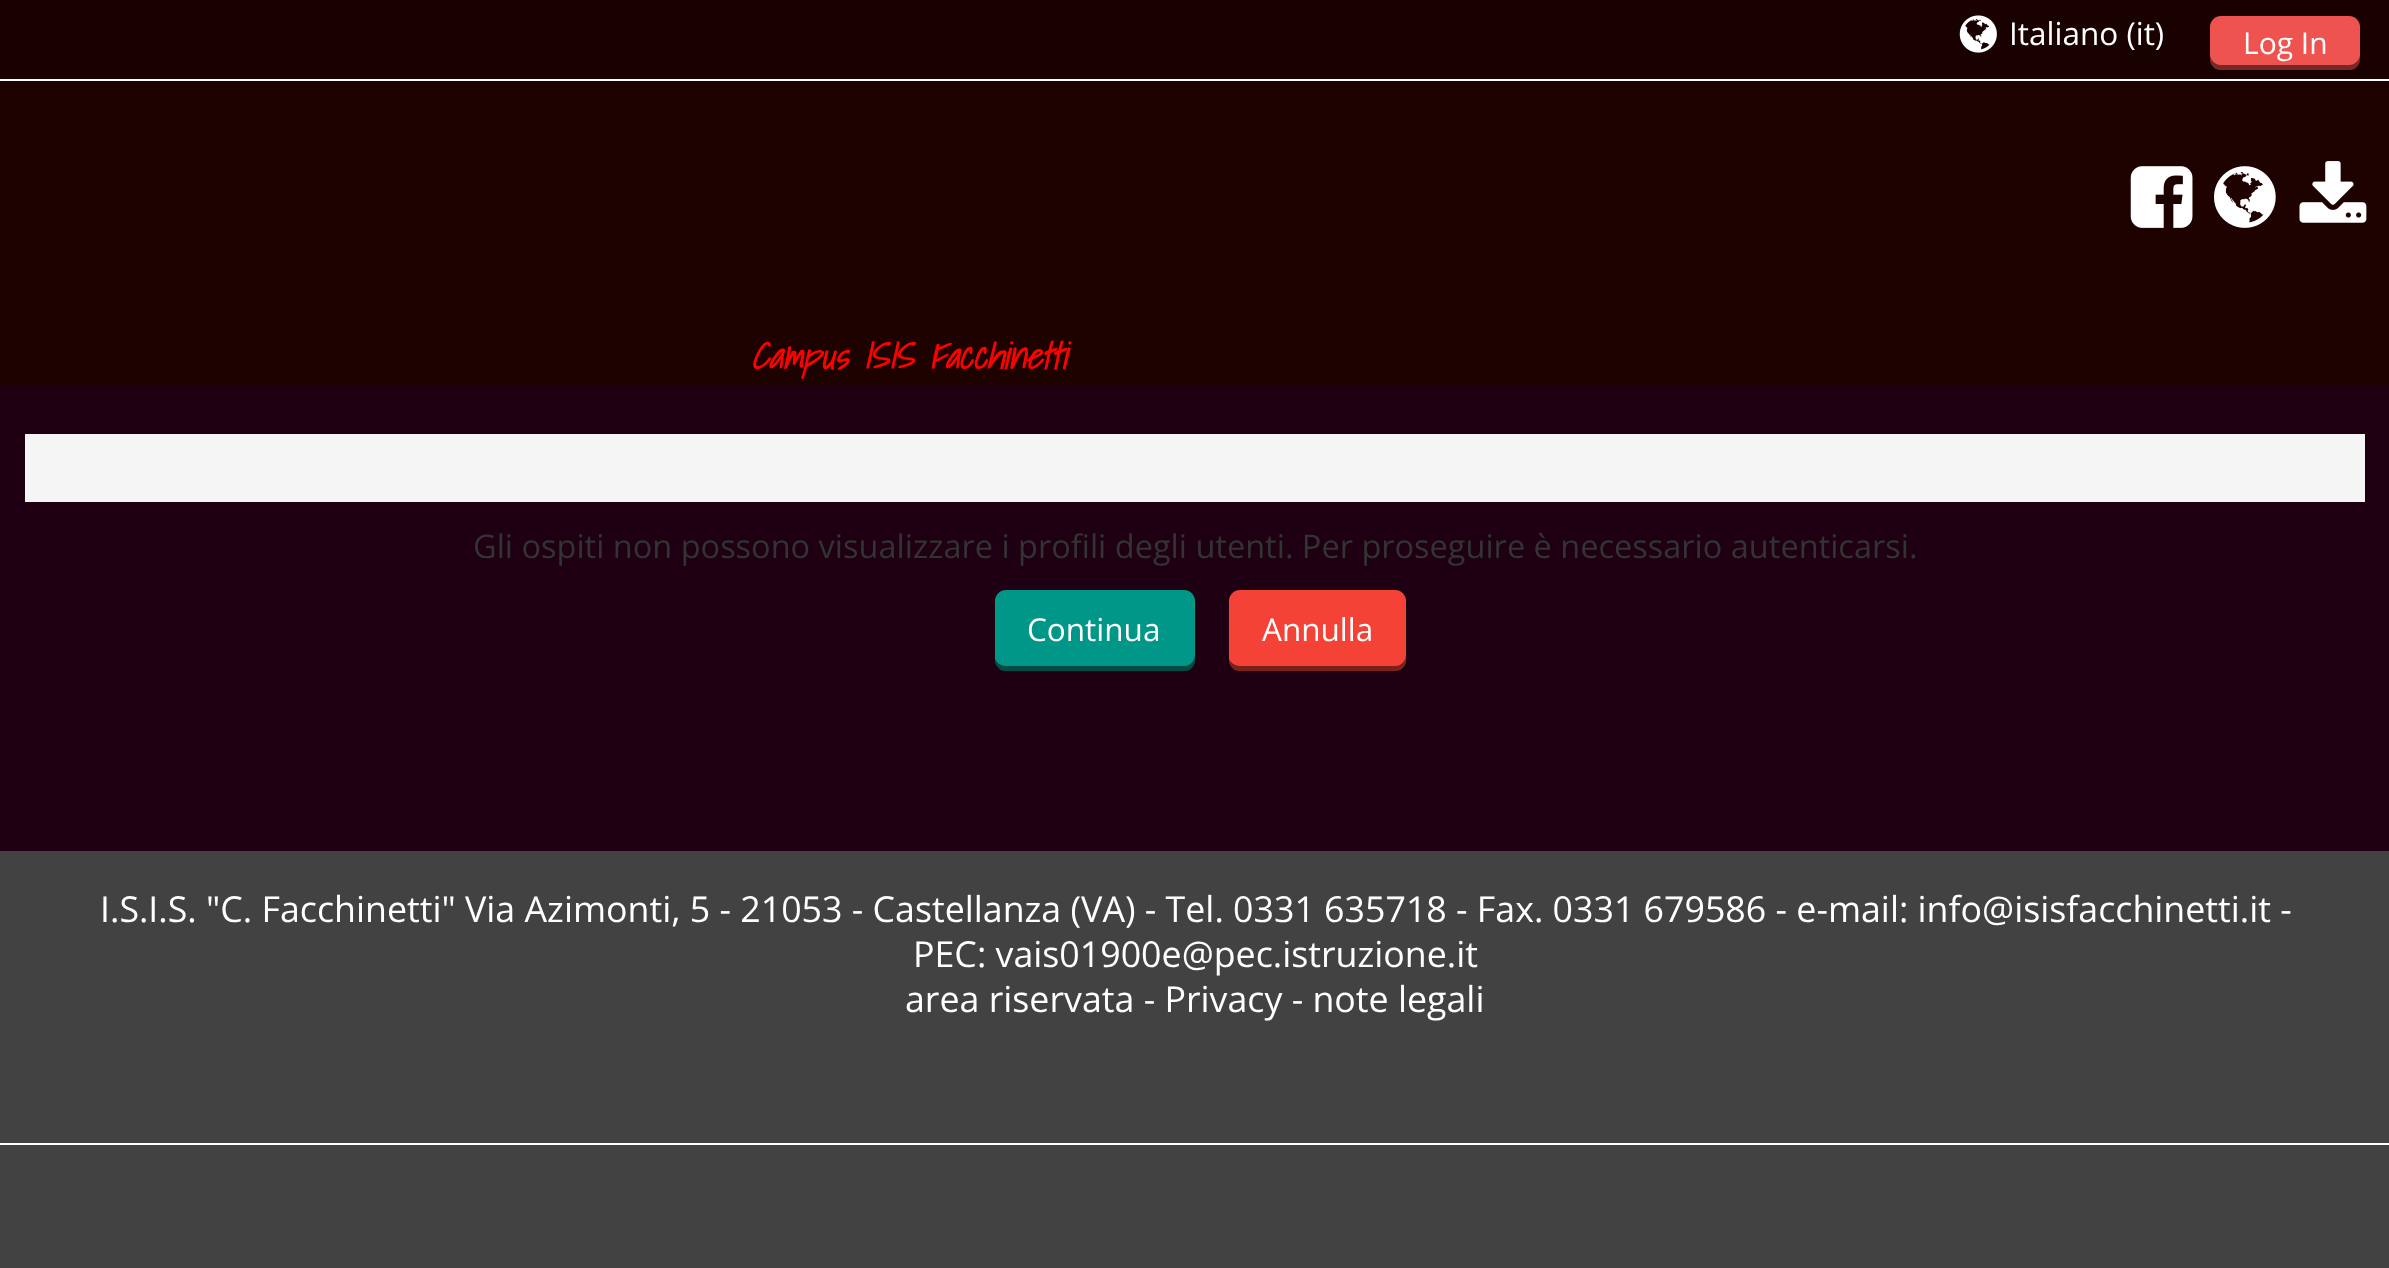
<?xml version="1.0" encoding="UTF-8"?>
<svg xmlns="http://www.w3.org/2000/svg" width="2389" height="1268">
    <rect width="100%" height="100%" fill="#1E0012"/>
    <rect x="0" y="81" width="2389" height="304" fill="#1E0200"/>
    <rect x="0" y="0" width="2389" height="79" fill="#190100"/>
    <rect x="0" y="79" width="2389" height="2" fill="#FFFFFF"/>
    <image x="1959" y="15" width="38" height="38" href="img_01.png"/>
    <text x="2009" y="45" font-family="Open Sans" font-size="31.5" fill="#FFFFFF">Italiano (it)</text>
    <rect x="2210" y="16" width="150" height="54" rx="11" fill="#EF5350"/>
    <path d="M 2210 54 V 59 C 2210 65 2215 70 2221 70 H 2349 C 2355 70 2360 65 2360 59 V 54 C 2360 60 2355 65 2349 65 H 2221 C 2215 65 2210 60 2210 54 Z" fill="#000000" fill-opacity="0.5"/>
    <text x="2243" y="54" font-family="Open Sans" font-size="30" fill="#FFFFFF">Log In</text>
    <image x="2130" y="166" width="63" height="62" href="img_02.png"/>
    <image x="2214" y="166" width="62" height="62" href="img_03.png"/>
    <image x="2299" y="161" width="68" height="62" href="img_04.png"/>
    <text x="751" y="369" font-family="Shadows Into Light" font-size="36" font-weight="700" font-style="italic" fill="#FF0000">Campus ISIS Facchinetti</text>
    <rect x="25" y="434" width="2340" height="68" fill="#F5F5F5"/>
    <text x="473" y="558" font-family="Open Sans" font-size="32.5" fill="#333333">Gli ospiti non possono visualizzare i profili degli utenti. Per proseguire è necessario autenticarsi.</text>
    <rect x="995" y="590" width="200" height="81" rx="11" fill="#009688"/>
    <path d="M 995 659 V 660 C 995 666 1000 671 1006 671 H 1184 C 1190 671 1195 666 1195 660 V 655 C 1195 661 1190 666 1184 666 H 1006 C 1001 666 997 663 995 659 Z" fill="#000000" fill-opacity="0.5"/>
    <text x="1027" y="641" font-family="Open Sans" font-size="31.5" fill="#FFFFFF">Continua</text>
    <rect x="1229" y="590" width="177" height="81" rx="11" fill="#F44336"/>
    <path d="M 1229 659 V 660 C 1229 666 1234 671 1240 671 H 1395 C 1401 671 1406 666 1406 660 V 655 C 1406 661 1401 666 1395 666 H 1240 C 1235 666 1231 663 1229 659 Z" fill="#000000" fill-opacity="0.5"/>
    <text x="1262" y="641" font-family="Open Sans" font-size="31.5" fill="#FFFFFF">Annulla</text>
    <rect x="0" y="851" width="2389" height="417" fill="#424242"/>
    <text x="100" y="922" font-family="Open Sans" font-size="35.75" fill="#FFFFFF">I.S.I.S. "C. Facchinetti" Via Azimonti, 5 - 21053 - Castellanza (VA) - Tel. 0331 635718 - Fax. 0331 679586 - e-mail: info@isisfacchinetti.it -</text>
    <text x="913" y="967" font-family="Open Sans" font-size="35.75" fill="#FFFFFF">PEC: vais01900e@pec.istruzione.it</text>
    <text x="905" y="1012" font-family="Open Sans" font-size="35.75" fill="#FFFFFF">area riservata - Privacy - note legali</text>
    <rect x="0" y="1143" width="2389" height="2" fill="#FFFFFF"/>
</svg>
